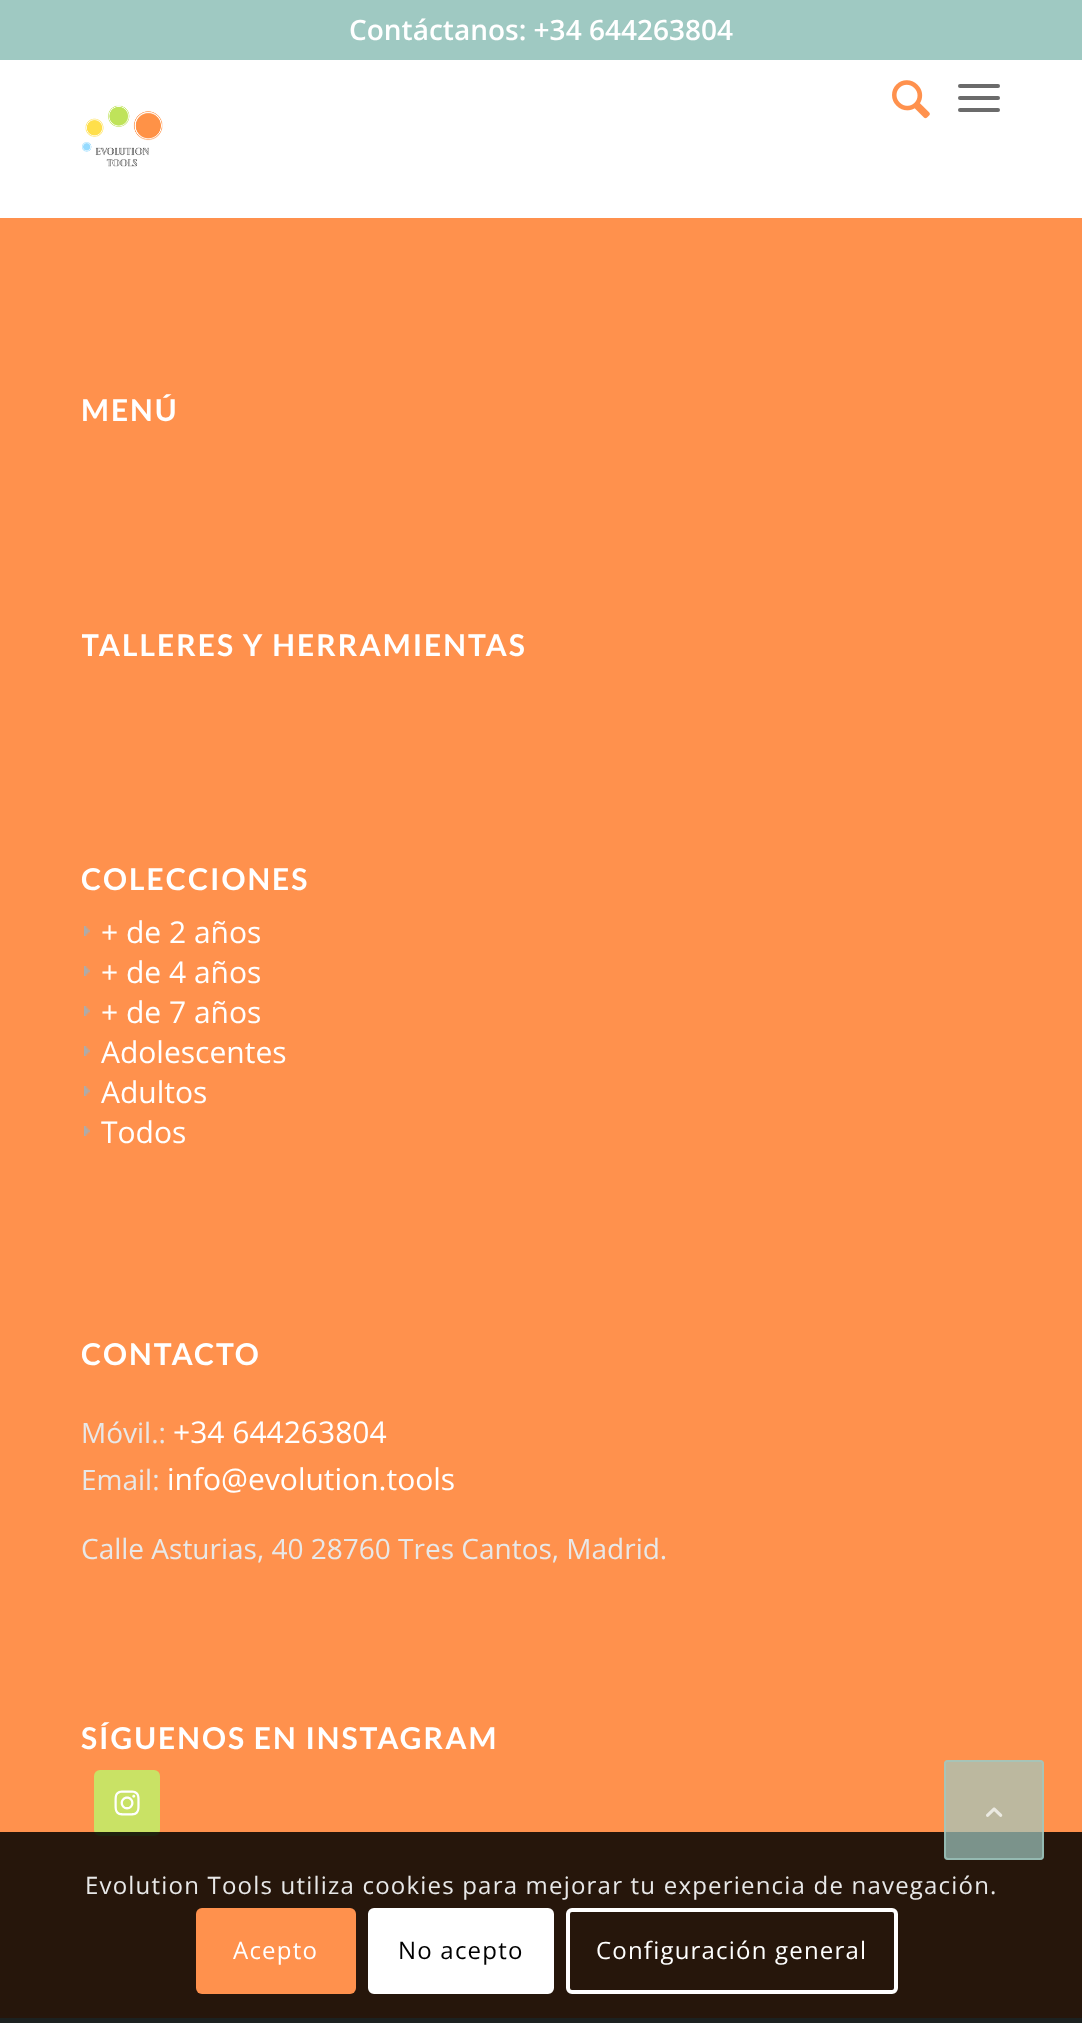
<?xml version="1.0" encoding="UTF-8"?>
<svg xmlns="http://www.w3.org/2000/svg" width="1082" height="2023">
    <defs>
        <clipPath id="clip1"><rect x="82" y="602" width="918" height="74"/></clipPath>
    </defs>
    <rect width="100%" height="100%" fill="#FF914D"/>
    <rect x="0" y="0" width="1082" height="60" fill="#9FC9C2"/>
    <text x="349" y="40" font-family="Open Sans" font-size="28" font-weight="600" fill="#FFFFFF">Contáctanos: +34 644263804</text>
    <rect x="0" y="60" width="1082" height="158" fill="#FFFFFF"/>
    <image x="892" y="80" width="38" height="39" href="img_01.png"/>
    <rect x="958" y="96" width="42" height="4" rx="2" fill="#6B6B6B"/>
    <rect x="958" y="84" width="42" height="4" rx="2" fill="#6B6B6B"/>
    <rect x="958" y="108" width="42" height="4" rx="2" fill="#6B6B6B"/>
    <image x="82" y="105" width="81" height="62" href="img_02.png"/>
    <text x="81" y="421" font-family="Lato" font-size="30" font-weight="700" letter-spacing="2" fill="#FFFFFF">MENÚ</text>
    <g clip-path="url(#clip1)">
        <text x="81" y="656" font-family="Lato" font-size="30" font-weight="700" letter-spacing="2" fill="#FFFFFF">TALLERES Y HERRAMIENTAS</text>
    </g>
    <text x="81" y="890" font-family="Lato" font-size="30" font-weight="700" letter-spacing="2" fill="#FFFFFF">COLECCIONES</text>
    <image x="84" y="926" width="6" height="10" href="img_03.png"/>
    <text x="101" y="943" font-family="Open Sans" font-size="30" fill="#FFFFFF">+ de 2 años</text>
    <image x="84" y="966" width="6" height="10" href="img_03.png"/>
    <text x="101" y="983" font-family="Open Sans" font-size="30" fill="#FFFFFF">+ de 4 años</text>
    <image x="84" y="1006" width="6" height="10" href="img_03.png"/>
    <text x="101" y="1023" font-family="Open Sans" font-size="30" fill="#FFFFFF">+ de 7 años</text>
    <image x="84" y="1046" width="6" height="10" href="img_03.png"/>
    <text x="101" y="1063" font-family="Open Sans" font-size="30" fill="#FFFFFF">Adolescentes</text>
    <image x="84" y="1086" width="6" height="10" href="img_03.png"/>
    <text x="101" y="1103" font-family="Open Sans" font-size="30" fill="#FFFFFF">Adultos</text>
    <image x="84" y="1126" width="6" height="10" href="img_03.png"/>
    <text x="101" y="1143" font-family="Open Sans" font-size="30" fill="#FFFFFF">Todos</text>
    <text x="81" y="1365" font-family="Lato" font-size="30" font-weight="700" letter-spacing="2" fill="#FFFFFF">CONTACTO</text>
    <text x="81" y="1443" font-family="Open Sans" font-size="28" fill="#E8E8E8">Móvil.:</text>
    <text x="173" y="1443" font-family="Open Sans" font-size="30" fill="#FFFFFF">+34 644263804</text>
    <text x="81" y="1490" font-family="Open Sans" font-size="28" fill="#E8E8E8">Email:</text>
    <text x="167" y="1490" font-family="Open Sans" font-size="30" fill="#FFFFFF">info@evolution.tools</text>
    <text x="81" y="1559" font-family="Open Sans" font-size="28" fill="#E8E8E8">Calle Asturias, 40 28760 Tres Cantos, Madrid.</text>
    <text x="81" y="1749" font-family="Lato" font-size="30" font-weight="700" letter-spacing="2" fill="#FFFFFF">SÍGUENOS EN INSTAGRAM</text>
    <rect x="94" y="1770" width="66" height="66" rx="6" fill="#C9E265"/>
    <image x="114" y="1790" width="26" height="26" href="img_04.png"/>
    <rect x="0" y="2018" width="1082" height="5" fill="#BADED8"/>
    <rect x="0" y="1832" width="1082" height="191" fill="#000000" fill-opacity="0.85"/>
    <rect x="944" y="1760" width="100" height="100" rx="4" fill="#9FC9C2" fill-opacity="0.7"/>
    <rect x="945" y="1761" width="98" height="98" rx="3" fill="none" stroke="#9FC9C2" stroke-opacity="0.7" stroke-width="2"/>
    <image x="986" y="1807" width="17" height="10" href="img_05.png"/>
    <text x="85" y="1894" font-family="Open Sans" font-size="24" letter-spacing="1.2" fill="#E8E8E8">Evolution Tools utiliza cookies para mejorar tu experiencia de navegación.</text>
    <rect x="196" y="1908" width="160" height="86" rx="6" fill="#FF914D"/>
    <text x="233" y="1959" font-family="Open Sans" font-size="24" letter-spacing="1.2" fill="#FFFFFF">Acepto</text>
    <rect x="370" y="1910" width="182" height="82" rx="4" fill="#FFFFFF" stroke="#FFFFFF" stroke-width="4"/>
    <text x="398" y="1959" font-family="Open Sans" font-size="24" letter-spacing="1.2" fill="#000000">No acepto</text>
    <rect x="568" y="1910" width="328" height="82" rx="4" fill="none" stroke="#FFFFFF" stroke-width="4"/>
    <text x="596" y="1959" font-family="Open Sans" font-size="24" letter-spacing="1.2" fill="#FFFFFF">Configuración general</text>
</svg>
